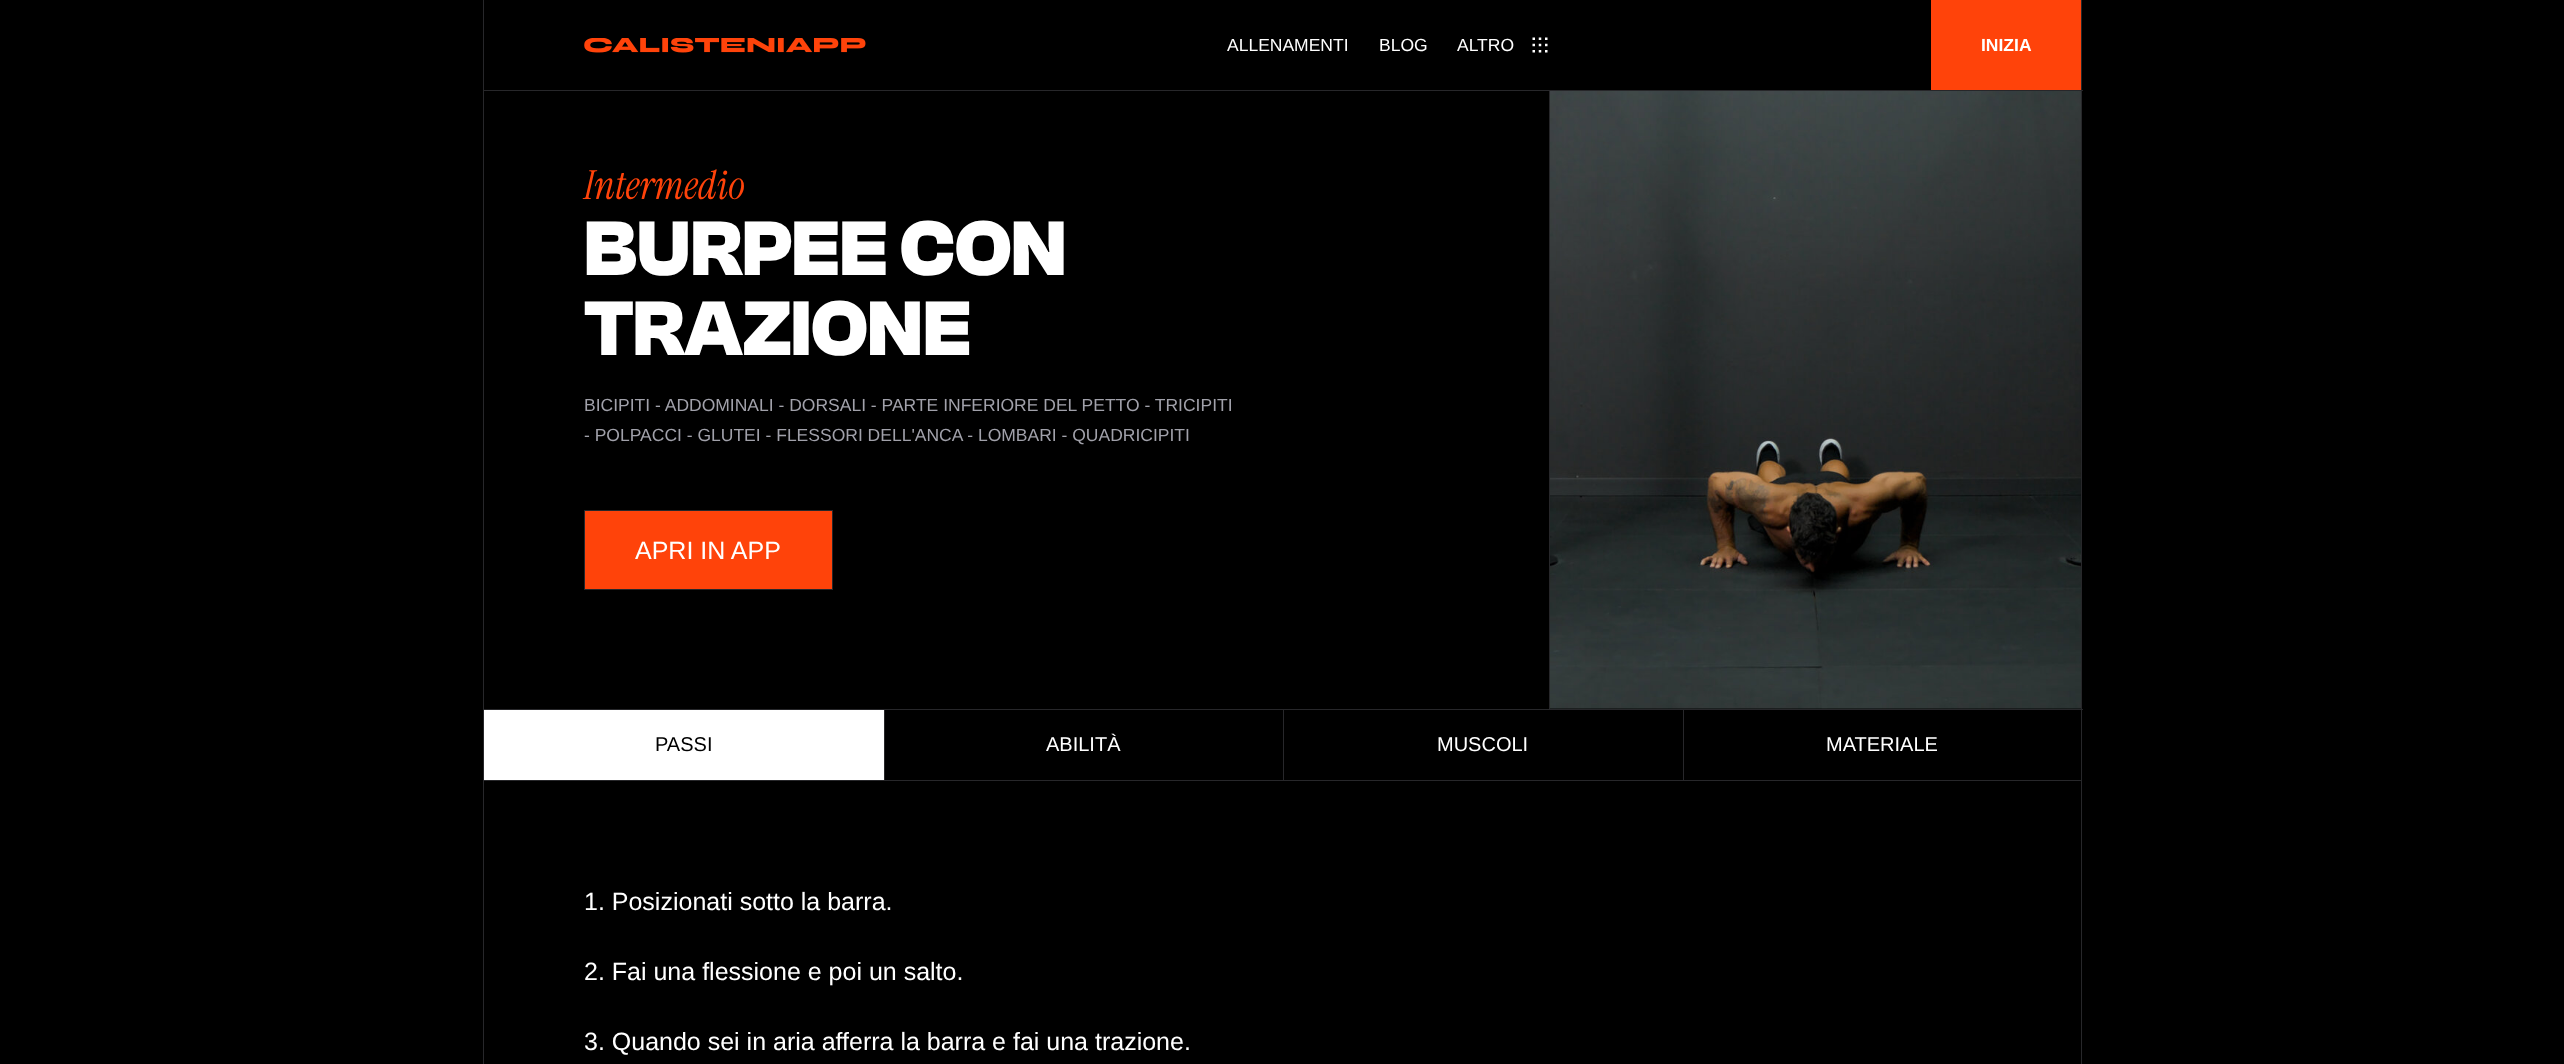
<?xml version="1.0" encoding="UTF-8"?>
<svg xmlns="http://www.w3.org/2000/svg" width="2564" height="1064">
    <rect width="100%" height="100%" fill="#000000"/>
    <rect x="2081" y="0" width="1" height="709" fill="#27272A"/>
    <rect x="483" y="0" width="1" height="709" fill="#27272A"/>
    <rect x="483" y="90" width="1600" height="1" fill="#27272A"/>
    <image x="584" y="38" width="282" height="15" href="img_01.png"/>
    <text x="1227" y="51" font-family="Liberation Sans" font-size="17.5" fill="#FFFFFF">ALLENAMENTI</text>
    <text x="1379" y="51" font-family="Liberation Sans" font-size="17.5" fill="#FFFFFF">BLOG</text>
    <text x="1457" y="51" font-family="Liberation Sans" font-size="17.5" fill="#FFFFFF">ALTRO</text>
    <image x="1532" y="37" width="16" height="16" href="img_02.png"/>
    <rect x="1931" y="0" width="150" height="90" fill="#FF430A"/>
    <text x="1981" y="51" font-family="Liberation Sans" font-size="17.5" font-weight="700" fill="#FFFFFF">INIZIA</text>
    <rect x="483" y="709" width="1600" height="1" fill="#27272A"/>
    <rect x="1549" y="91" width="1" height="618" fill="#27272A"/>
    <text x="584" y="199" font-family="Instrument Serif" font-size="40" font-style="italic" fill="#FF430A">Intermedio</text>
    <text font-family="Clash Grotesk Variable" font-size="80" font-weight="700" fill="#FFFFFF">
        <tspan x="584" y="275">BURPEE CON</tspan>
        <tspan x="584" y="355">TRAZIONE</tspan>
    </text>
    <text font-family="Liberation Sans" font-size="17.5" fill="#A1A1AA">
        <tspan x="584" y="411">BICIPITI - ADDOMINALI - DORSALI - PARTE INFERIORE DEL PETTO - TRICIPITI</tspan>
        <tspan x="584" y="441">- POLPACCI - GLUTEI - FLESSORI DELL'ANCA - LOMBARI - QUADRICIPITI</tspan>
    </text>
    <rect x="584.5" y="510.5" width="248" height="79" fill="#FF430A" stroke="#27272A"/>
    <text x="635" y="559" font-family="Liberation Sans" font-size="25" fill="#FFFFFF">APRI IN APP</text>
    <image x="1550" y="91" width="531" height="618" href="img_03.png"/>
    <rect x="2081" y="710" width="1" height="354" fill="#27272A"/>
    <rect x="483" y="710" width="1" height="354" fill="#27272A"/>
    <rect x="484" y="710" width="400" height="70" fill="#FFFFFF"/>
    <text x="655" y="751" font-family="Liberation Sans" font-size="20" fill="#010101">PASSI</text>
    <rect x="884" y="710" width="1" height="70" fill="#27272A"/>
    <text x="1046" y="751" font-family="Liberation Sans" font-size="20" fill="#FFFFFF">ABILITÀ</text>
    <rect x="1283" y="710" width="1" height="70" fill="#27272A"/>
    <text x="1437" y="751" font-family="Liberation Sans" font-size="20" fill="#FFFFFF">MUSCOLI</text>
    <rect x="1683" y="710" width="1" height="70" fill="#27272A"/>
    <text x="1826" y="751" font-family="Liberation Sans" font-size="20" fill="#FFFFFF">MATERIALE</text>
    <rect x="484" y="780" width="1597" height="1" fill="#27272A"/>
    <text x="584" y="910" font-family="Liberation Sans" font-size="25" fill="#FFFFFF">1. Posizionati sotto la barra.</text>
    <text x="584" y="980" font-family="Liberation Sans" font-size="25" fill="#FFFFFF">2. Fai una flessione e poi un salto.</text>
    <text x="584" y="1050" font-family="Liberation Sans" font-size="25" fill="#FFFFFF">3. Quando sei in aria afferra la barra e fai una trazione.</text>
</svg>
